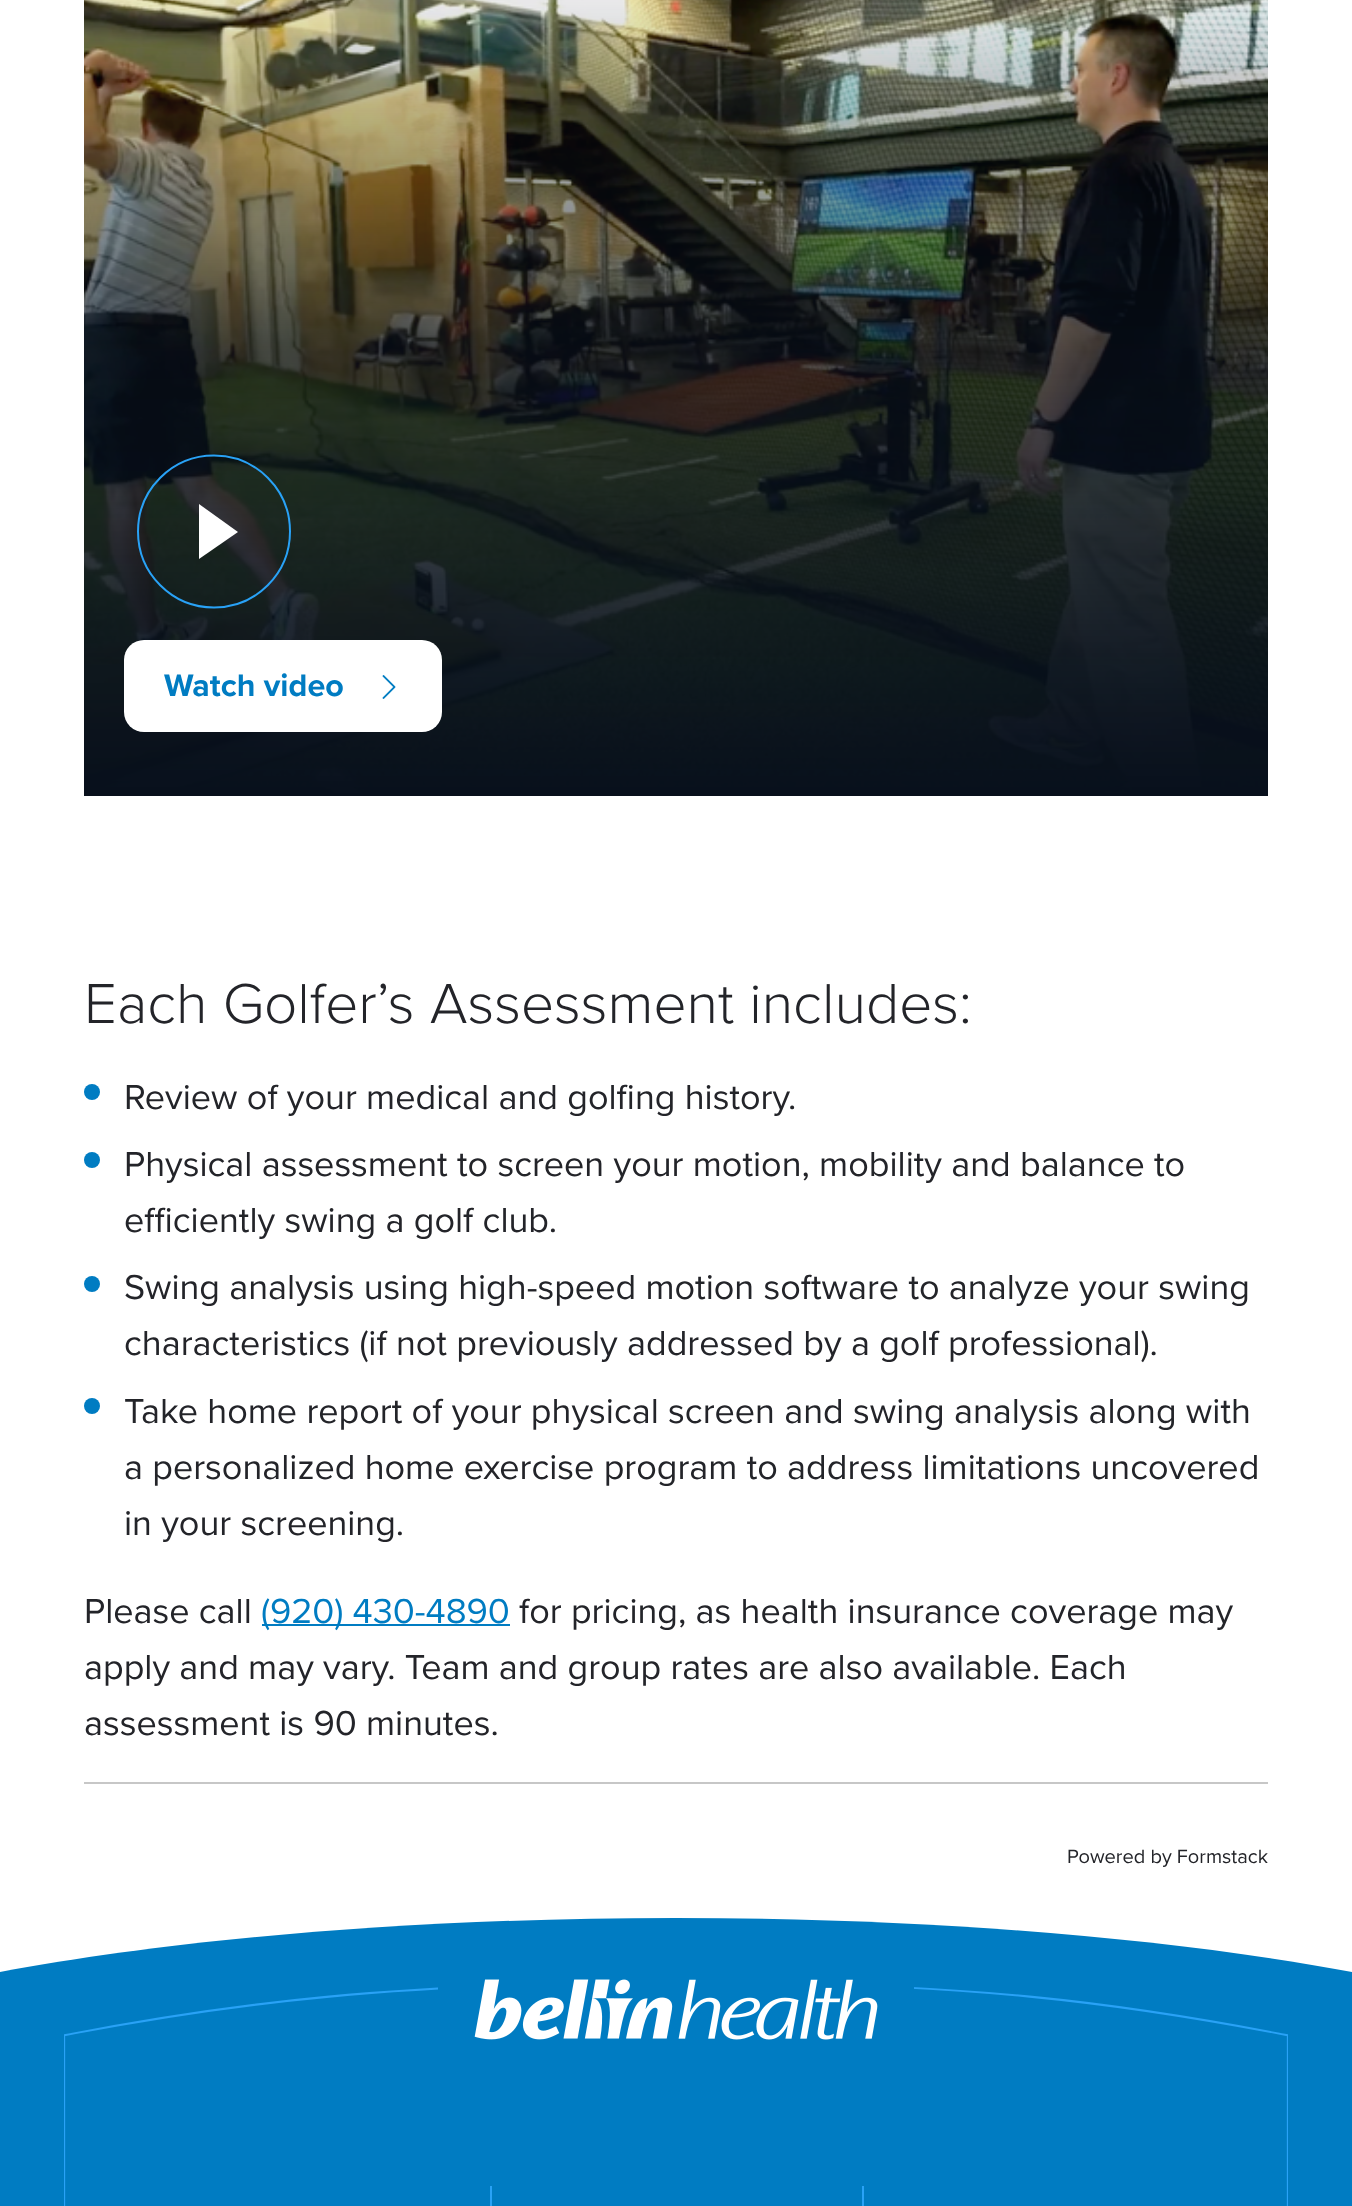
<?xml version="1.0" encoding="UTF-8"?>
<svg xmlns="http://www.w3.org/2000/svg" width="1352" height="2206">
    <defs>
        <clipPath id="clip1"><rect x="64" y="1982" width="1224" height="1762"/></clipPath>
    </defs>
    <rect width="100%" height="100%" fill="#FFFFFF"/>
    <image x="84" y="0" width="1184" height="796" href="img_01.png"/>
    <path d="M 290 531.5 C 290 573.5 256 607.5 214 607.5 C 172 607.5 138 573.5 138 531.5 C 138 489.5 172 455.5 214 455.5 C 256 455.5 290 489.5 290 531.5 Z" fill="none" stroke="#29A2F6" stroke-width="2"/>
    <path d="M 238 532 L 199 559 V 504 Z" fill="#FFFFFF"/>
    <rect x="124" y="640" width="318" height="92" rx="20" fill="#FFFFFF"/>
    <text x="164" y="696" font-family="Proxima Nova" font-size="32.25" font-weight="700" fill="#007CC2">Watch video</text>
    <image x="382" y="675" width="14" height="24" href="img_02.png"/>
    <text x="84" y="1023" font-family="Proxima Nova" font-size="58.3" font-weight="300" fill="#232429">Each Golfer’s Assessment includes:</text>
    <circle cx="92" cy="1092" r="8" fill="#007CC2"/>
    <text x="124" y="1109" font-family="Proxima Nova" font-size="36" fill="#232429">Review of your medical and golfing history.</text>
    <circle cx="92" cy="1160" r="8" fill="#007CC2"/>
    <text font-family="Proxima Nova" font-size="36" fill="#232429">
        <tspan x="124" y="1176">Physical assessment to screen your motion, mobility and balance to</tspan>
        <tspan x="124" y="1232">efficiently swing a golf club.</tspan>
    </text>
    <circle cx="92" cy="1284" r="8" fill="#007CC2"/>
    <text font-family="Proxima Nova" font-size="36" fill="#232429">
        <tspan x="124" y="1299">Swing analysis using high-speed motion software to analyze your swing</tspan>
        <tspan x="124" y="1355">characteristics (if not previously addressed by a golf professional).</tspan>
    </text>
    <circle cx="92" cy="1406" r="8" fill="#007CC2"/>
    <text font-family="Proxima Nova" font-size="36" fill="#232429">
        <tspan x="124" y="1423">Take home report of your physical screen and swing analysis along with</tspan>
        <tspan x="124" y="1479">a personalized home exercise program to address limitations uncovered</tspan>
        <tspan x="124" y="1535">in your screening.</tspan>
    </text>
    <text x="84" y="1623" font-family="Proxima Nova" font-size="36" fill="#232429">Please call</text>
    <rect x="262" y="1624" width="248" height="2" fill="#007CC2"/>
    <text x="261" y="1623" font-family="Proxima Nova" font-size="36" fill="#007CC2">(920) 430-4890</text>
    <text x="519" y="1623" font-family="Proxima Nova" font-size="36" fill="#232429">for pricing, as health insurance coverage may</text>
    <text font-family="Proxima Nova" font-size="36" fill="#232429">
        <tspan x="84" y="1679">apply and may vary. Team and group rates are also available. Each</tspan>
        <tspan x="84" y="1735">assessment is 90 minutes.</tspan>
    </text>
    <rect x="84" y="1782" width="1184" height="2" fill="#C7C7C7"/>
    <text x="1067" y="1863" font-family="Proxima Nova" font-size="20" fill="#232429">Powered by Formstack</text>
    <path d="M 676 1918 C 415 1918 177 1939 0 1972 V 2001 H 1352 V 1972 C 1175 1939 937 1918 676 1918 Z" fill="#007CC2"/>
    <rect x="0" y="2001" width="1352" height="205" fill="#007CC2"/>
    <g clip-path="url(#clip1)">
        <path d="M 64 2035 C 231 2002.5 393 1982.5 676 1982 M 689.5 1982 C 972.5 1982.5 1121 2002.5 1288 2035 M 64.5 2035.5 C 233 2003 396 1983 683 1982.5 C 969.5 1983 1119.5 2003 1287.5 2035.5 V 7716.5 H 64.5 Z" fill="none" stroke="#29A2F6" stroke-width="1.3"/>
    </g>
    <image x="438" y="1979" width="476" height="61" href="img_03.png"/>
    <rect x="490" y="2186" width="2" height="20" fill="#29A2F6"/>
    <rect x="862" y="2186" width="2" height="20" fill="#29A2F6"/>
</svg>
